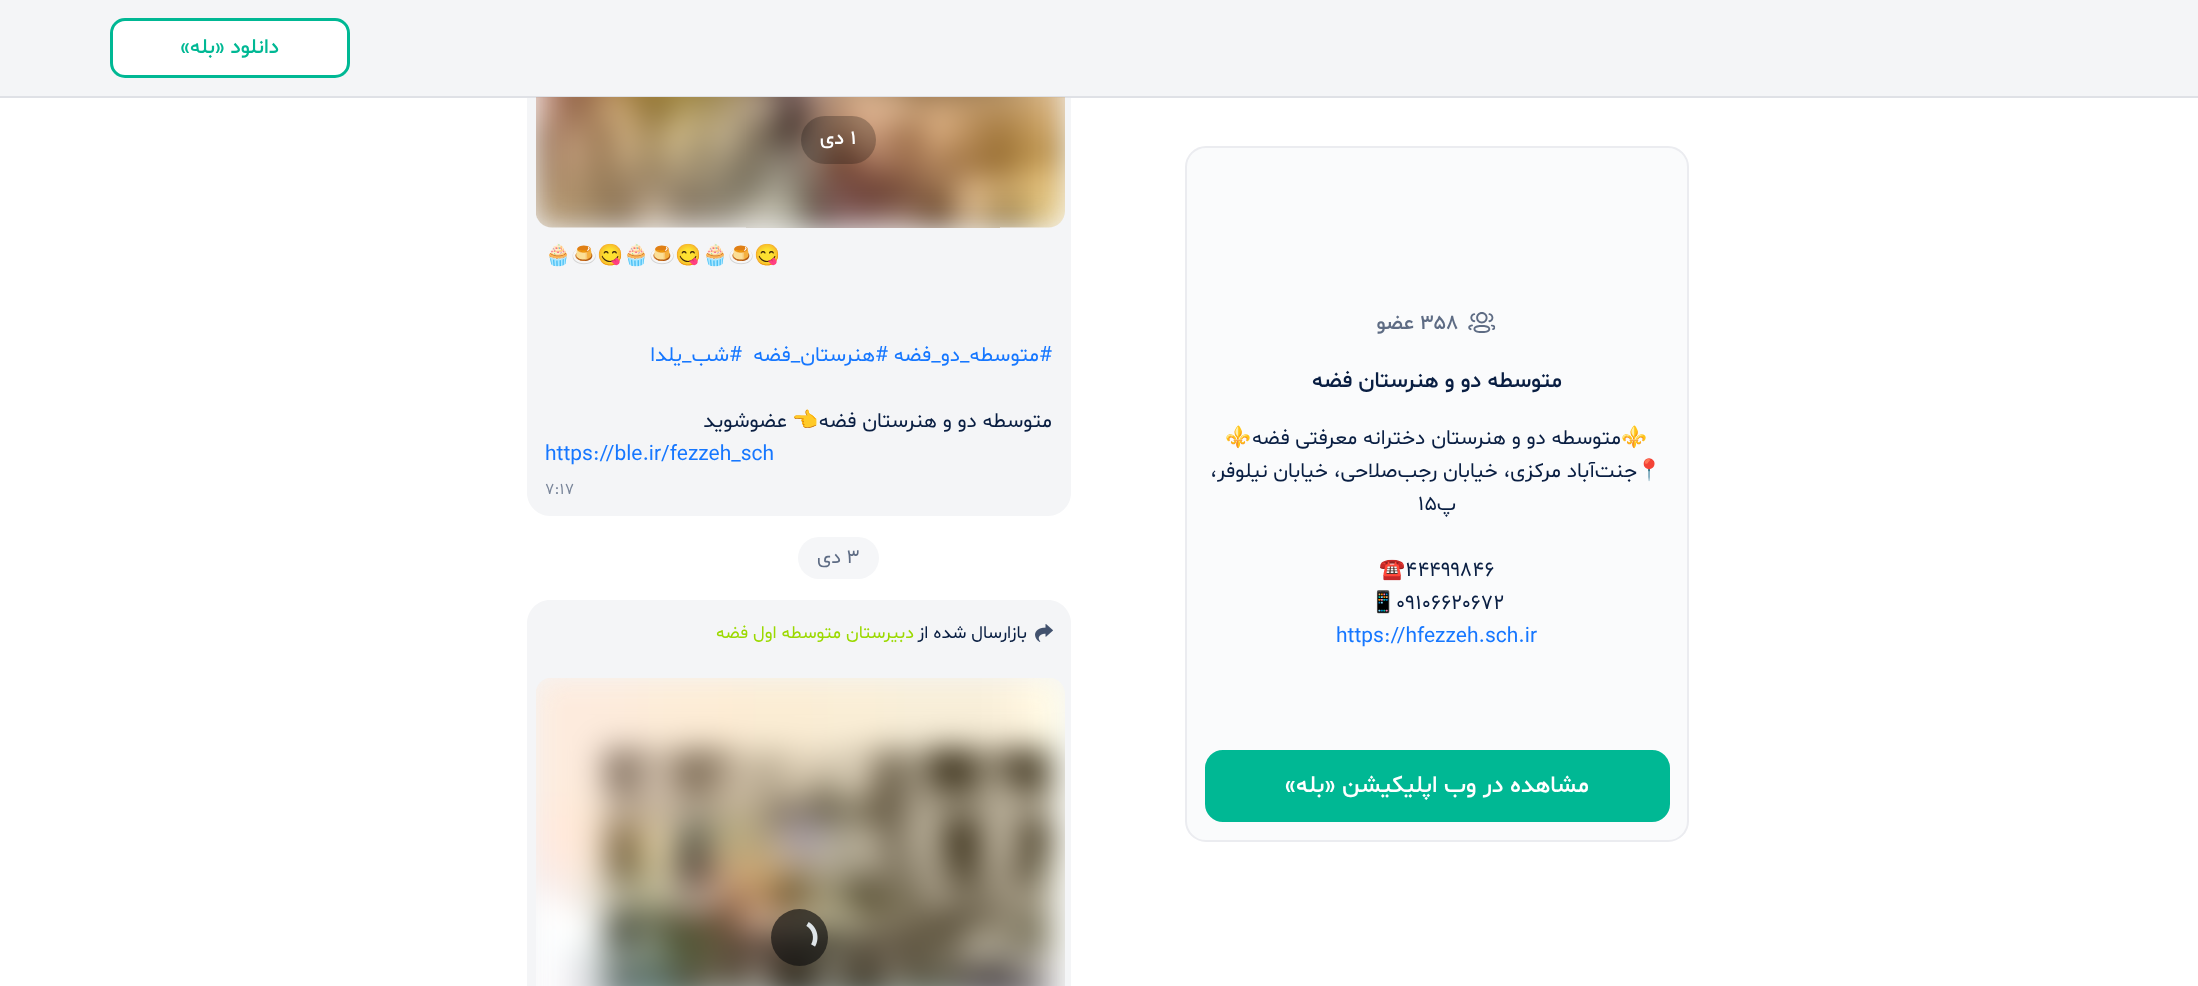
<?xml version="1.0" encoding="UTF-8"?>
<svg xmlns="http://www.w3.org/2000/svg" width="2198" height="986">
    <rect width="100%" height="100%" fill="#FFFFFF"/>
    <rect x="0" y="0" width="2198" height="96" fill="#F4F5F7"/>
    <rect x="0" y="96" width="2198" height="2" fill="#DFE1E6"/>
    <rect x="111.5" y="19.5" width="237" height="57" rx="13.5" fill="#FFFFFF" stroke="#00B894" stroke-width="3"/>
    <text x="279" y="53" font-family="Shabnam" font-size="21" font-weight="500" direction="rtl" fill="#00B894">دانلود «بله»</text>
    <rect x="1186" y="147" width="502" height="694" rx="20" fill="#FAFBFC" stroke="#EBECF0" stroke-width="2"/>
    <image x="1468" y="312" width="28" height="21" href="img_01.png"/>
    <text x="1420" y="329" font-family="Shabnam" font-size="21" font-weight="500" fill="#5E6C84">۳۵۸</text>
    <text x="1414" y="329" font-family="Shabnam" font-size="21" font-weight="500" direction="rtl" fill="#5E6C84">عضو</text>
    <text x="1562" y="387" font-family="Shabnam" font-size="22.5" font-weight="500" direction="rtl" fill="#091E42">متوسطه دو و هنرستان فضه</text>
    <text x="1648" y="444" font-family="Noto Color Emoji" font-size="21" direction="rtl" fill="#091E42">⚜️</text>
    <text x="1621" y="444" font-family="Shabnam" font-size="21" direction="rtl" fill="#091E42">متوسطه دو و هنرستان دخترانه معرفتی فضه</text>
    <text x="1252" y="444" font-family="Noto Color Emoji" font-size="21" direction="rtl" fill="#091E42">⚜️</text>
    <text x="1663" y="477" font-family="Noto Color Emoji" font-size="21" direction="rtl" fill="#091E42">📍</text>
    <text x="1637" y="477" font-family="Shabnam" font-size="21" direction="rtl" fill="#091E42">جنت‌آباد مرکزی، خیابان رجب‌صلاحی، خیابان نیلوفر،</text>
    <text x="1456" y="510" font-family="Shabnam" font-size="21" direction="rtl" fill="#091E42">پ</text>
    <text x="1418" y="510" font-family="Shabnam" font-size="21" fill="#091E42">۱۵</text>
    <text x="1405" y="576" font-family="Shabnam" font-size="21" fill="#091E42">۴۴۴۹۹۸۴۶</text>
    <text x="1379" y="576" font-family="Noto Color Emoji" font-size="21" fill="#091E42">☎️</text>
    <text x="1396" y="609" font-family="Shabnam" font-size="21" fill="#091E42">۰۹۱۰۶۶۲۰۶۷۲</text>
    <text x="1370" y="609" font-family="Noto Color Emoji" font-size="21" fill="#091E42">📱</text>
    <text x="1336" y="642" font-family="Shabnam" font-size="21" fill="#1677FF">https://hfezzeh.sch.ir</text>
    <rect x="1206.5" y="751.5" width="462" height="69" rx="16.5" fill="#00B894" stroke="#00B894" stroke-width="3"/>
    <text x="1589" y="792" font-family="Shabnam" font-size="24" font-weight="500" direction="rtl" fill="#FFFFFF">مشاهده در وب ‌اپلیکیشن «بله»</text>
    <path d="M 527 98 H 1071 V 493 C 1071 505.5 1060.5 516 1048 516 H 550 C 537.5 516 527 505.5 527 493 Z" fill="#F4F5F7"/>
    <image x="536" y="97" width="529" height="131" href="img_02.png"/>
    <rect x="801" y="116" width="75" height="48" rx="24" fill="#000000" fill-opacity="0.24"/>
    <text x="850" y="144" font-family="Shabnam" font-size="20" font-weight="500" fill="#FFFFFF">۱</text>
    <text x="844" y="144" font-family="Shabnam" font-size="20" font-weight="500" direction="rtl" fill="#FFFFFF">دی</text>
    <text x="545" y="262" font-family="Noto Color Emoji" font-size="21" fill="#091E42">🧁🍮😋🧁🍮😋🧁🍮😋</text>
    <text x="1052" y="361" font-family="Shabnam" font-size="21" direction="rtl" fill="#1677FF">#متوسطه_دو_فضه</text>
    <text x="888" y="361" font-family="Shabnam" font-size="21" direction="rtl" fill="#1677FF">#هنرستان_فضه</text>
    <text x="742" y="361" font-family="Shabnam" font-size="21" direction="rtl" fill="#1677FF">#شب_یلدا</text>
    <text x="1052" y="427" font-family="Shabnam" font-size="21" direction="rtl" fill="#091E42">متوسطه دو و هنرستان فضه</text>
    <text x="819" y="427" font-family="Noto Color Emoji" font-size="21" direction="rtl" fill="#091E42">👈</text>
    <text x="787" y="427" font-family="Shabnam" font-size="21" direction="rtl" fill="#091E42">عضوشوید</text>
    <text x="545" y="460" font-family="Shabnam" font-size="21" fill="#1677FF">https://ble.ir/fezzeh_sch</text>
    <text x="545" y="494" font-family="Shabnam" font-size="16" fill="#7A869A">۷:۱۷</text>
    <rect x="798" y="537" width="81" height="42" rx="21" fill="#F5F6F8"/>
    <text x="846" y="563" font-family="Shabnam" font-size="20" fill="#5E6C84">۳</text>
    <text x="841" y="563" font-family="Shabnam" font-size="20" direction="rtl" fill="#5E6C84">دی</text>
    <path d="M 550 600 H 1048 C 1060.5 600 1071 610.5 1071 623 V 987 H 527 V 623 C 527 610.5 537.5 600 550 600 Z" fill="#F4F5F7"/>
    <image x="1035" y="624" width="18" height="18" href="img_03.png"/>
    <text x="1027" y="638" font-family="Shabnam" font-size="18" direction="rtl" fill="#091E42">بازارسال شده از</text>
    <text x="914" y="638" font-family="Shabnam" font-size="18" direction="rtl" fill="#9BD900">دبیرستان متوسطه اول فضه</text>
    <image x="536" y="678" width="529" height="308" href="img_04.png"/>
    <circle cx="799.5" cy="937.5" r="28.5" fill="#0F0F0F" fill-opacity="0.65"/>
    <image x="806" y="922" width="12" height="25" href="img_05.png"/>
</svg>
